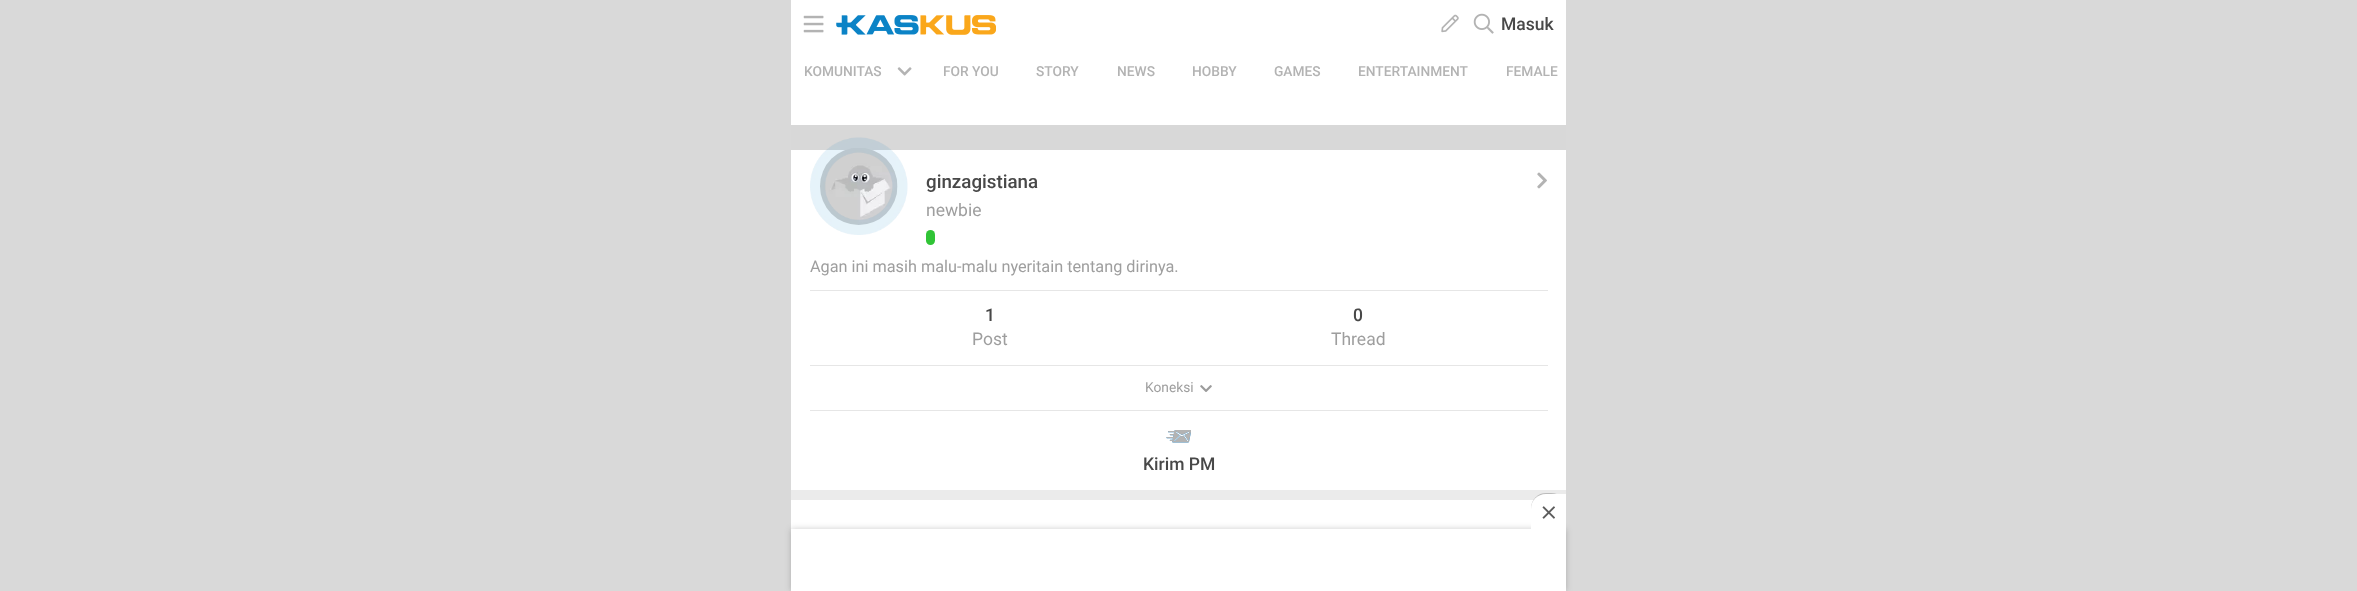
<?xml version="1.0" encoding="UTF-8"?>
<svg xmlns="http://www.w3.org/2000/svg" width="2357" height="591">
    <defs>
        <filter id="blur1" x="-50%" y="-200%" width="200%" height="500%"><feGaussianBlur stdDeviation="3"/></filter>
        <filter id="blur2" x="-50%" y="-200%" width="200%" height="500%"><feGaussianBlur stdDeviation="0.5"/></filter>
    </defs>
    <rect width="100%" height="100%" fill="#D9D9D9"/>
    <rect x="791" y="0" width="775" height="529" fill="#FFFFFF"/>
    <image x="803" y="15" width="21" height="18" href="img_01.png"/>
    <image x="836" y="15" width="160" height="20" href="img_02.png"/>
    <image x="1441" y="14" width="18" height="19" href="img_03.png"/>
    <image x="1473" y="13" width="21" height="21" href="img_04.png"/>
    <text x="1501" y="30" font-family="Roboto" font-size="17.5" font-weight="500" fill="#484848">Masuk</text>
    <text x="804" y="76" font-family="Roboto" font-size="13.75" font-weight="500" fill="#B3B3B3">KOMUNITAS</text>
    <image x="897" y="67" width="15" height="9" href="img_05.png"/>
    <text x="943" y="76" font-family="Roboto" font-size="13.75" font-weight="500" fill="#B3B3B3">FOR YOU</text>
    <text x="1036" y="76" font-family="Roboto" font-size="13.75" font-weight="500" fill="#B3B3B3">STORY</text>
    <text x="1117" y="76" font-family="Roboto" font-size="13.75" font-weight="500" fill="#B3B3B3">NEWS</text>
    <text x="1192" y="76" font-family="Roboto" font-size="13.75" font-weight="500" fill="#B3B3B3">HOBBY</text>
    <text x="1274" y="76" font-family="Roboto" font-size="13.75" font-weight="500" fill="#B3B3B3">GAMES</text>
    <text x="1358" y="76" font-family="Roboto" font-size="13.75" font-weight="500" fill="#B3B3B3">ENTERTAINMENT</text>
    <text x="1506" y="76" font-family="Roboto" font-size="13.75" font-weight="500" fill="#B3B3B3">FEMALE</text>
    <rect x="791" y="125" width="775" height="25" fill="#D8D8D8"/>
    <image x="820" y="148" width="78" height="77" href="img_07.png"/>
    <image x="810" y="137" width="98" height="98" href="img_06.png"/>
    <text x="926" y="188" font-family="Roboto" font-size="18.75" font-weight="500" fill="#484848">ginzagistiana</text>
    <text x="926" y="216" font-family="Roboto" font-size="17.5" fill="#9E9E9E">newbie</text>
    <rect x="926" y="230" width="9" height="15" rx="4.5" fill="#30C436"/>
    <image x="1537" y="172" width="10" height="17" href="img_08.png"/>
    <rect x="791" y="490" width="775" height="10" fill="#EBEBEB"/>
    <text x="810" y="272" font-family="Roboto" font-size="16.25" fill="#9E9E9E">Agan ini masih malu-malu nyeritain tentang dirinya.</text>
    <rect x="810" y="290" width="738" height="1" fill="#E6E6E6"/>
    <text x="985" y="321" font-family="Roboto" font-size="17.5" font-weight="500" fill="#484848">1</text>
    <text x="972" y="345" font-family="Roboto" font-size="17.5" fill="#9E9E9E">Post</text>
    <text x="1353" y="321" font-family="Roboto" font-size="17.5" font-weight="500" fill="#484848">0</text>
    <text x="1331" y="345" font-family="Roboto" font-size="17.5" fill="#9E9E9E">Thread</text>
    <rect x="810" y="365" width="738" height="1" fill="#E6E6E6"/>
    <text x="1145" y="392" font-family="Roboto" font-size="13.75" fill="#9E9E9E">Koneksi</text>
    <image x="1200" y="385" width="12" height="7" href="img_09.png"/>
    <rect x="810" y="410" width="738" height="1" fill="#E6E6E6"/>
    <image x="1166" y="430" width="25" height="13" href="img_10.png"/>
    <text x="1143" y="470" font-family="Roboto" font-size="17.5" font-weight="500" fill="#484848">Kirim PM</text>
    <rect x="791" y="529" width="775" height="62" fill="#000000" fill-opacity="0.2" filter="url(#blur1)"/>
    <rect x="791" y="529" width="775" height="62" fill="#FFFFFF"/>
    <rect x="1531" y="493" width="35" height="35" rx="15" fill="#000000" fill-opacity="0.2" filter="url(#blur2)"/>
    <path d="M 1546 494 H 1566 V 529 H 1531 V 509 C 1531 500.5 1537.5 494 1546 494 Z" fill="#FFFFFF"/>
    <image x="1542" y="506" width="13" height="13" href="img_11.png"/>
</svg>
